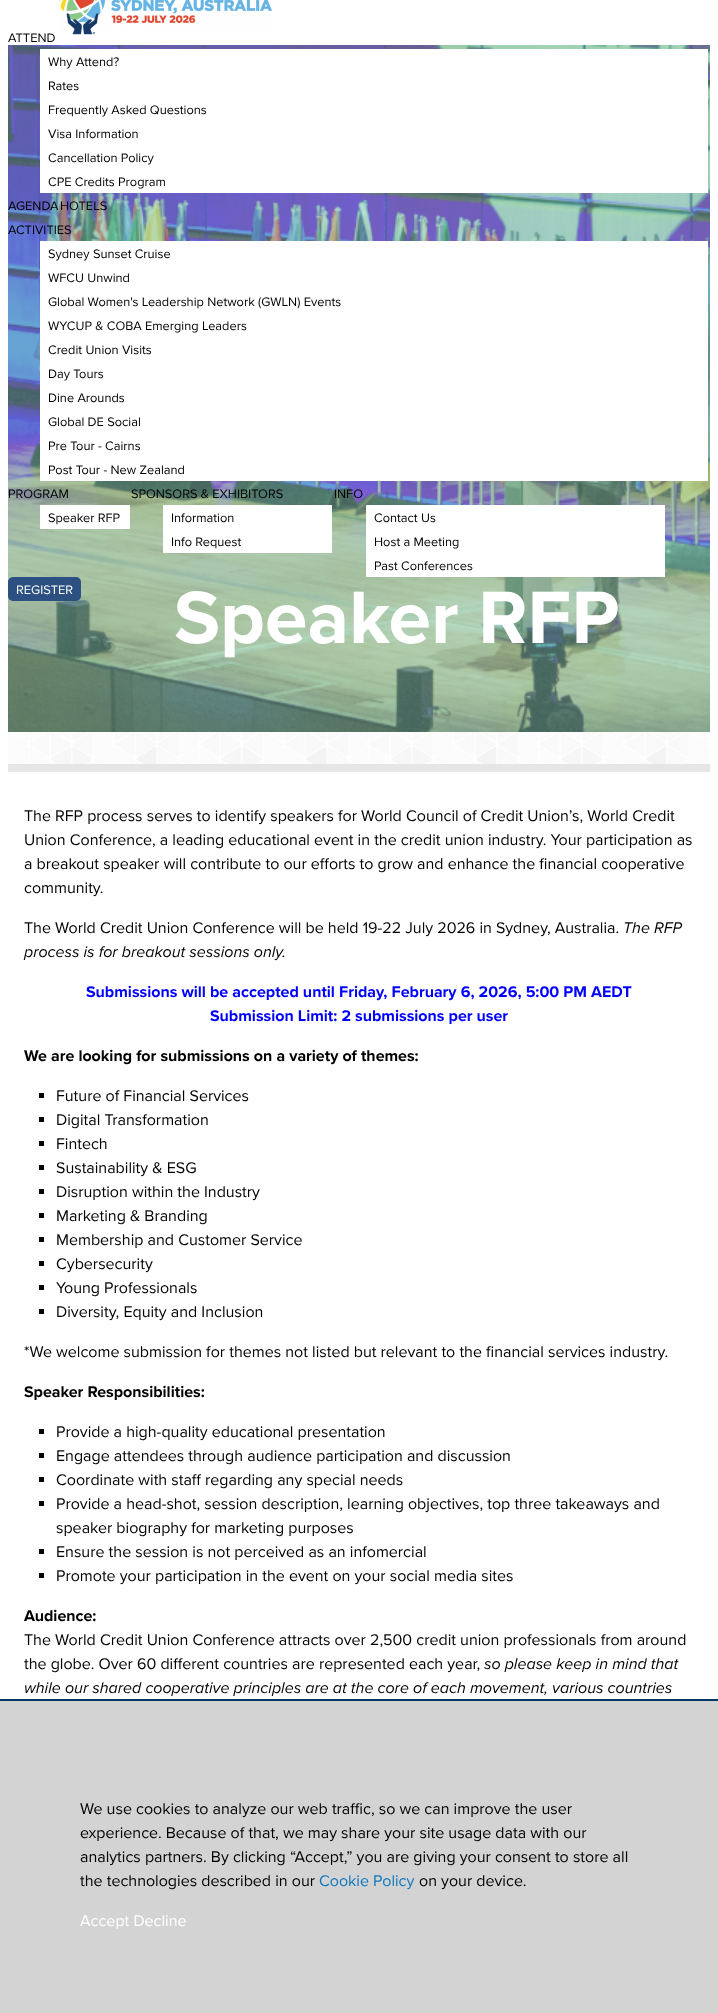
<?xml version="1.0" encoding="UTF-8"?>
<svg xmlns="http://www.w3.org/2000/svg" width="718" height="2013">
    <rect width="100%" height="100%" fill="#FFFFFF"/>
    <image x="59" y="0" width="214" height="35" href="img_01.png"/>
    <text x="8" y="42" font-family="Proxima Nova" font-size="12.8" fill="#000000">ATTEND</text>
    <image x="8" y="45" width="702" height="687" href="img_03.png"/>
    <rect x="40" y="49" width="668" height="144" fill="#FFFFFF"/>
    <text font-family="Proxima Nova" font-size="12.8" fill="#000000">
        <tspan x="48" y="66">Why Attend?</tspan>
        <tspan x="48" y="90">Rates</tspan>
        <tspan x="48" y="114">Frequently Asked Questions</tspan>
        <tspan x="48" y="138">Visa Information</tspan>
        <tspan x="48" y="162">Cancellation Policy</tspan>
        <tspan x="48" y="186">CPE Credits Program</tspan>
    </text>
    <text x="8" y="210" font-family="Proxima Nova" font-size="12.8" fill="#000000">AGENDA</text>
    <text x="60" y="210" font-family="Proxima Nova" font-size="12.8" fill="#000000">HOTELS</text>
    <text x="8" y="234" font-family="Proxima Nova" font-size="12.8" fill="#000000">ACTIVITIES</text>
    <rect x="40" y="241" width="668" height="240" fill="#FFFFFF"/>
    <text font-family="Proxima Nova" font-size="12.8" fill="#000000">
        <tspan x="48" y="258">Sydney Sunset Cruise</tspan>
        <tspan x="48" y="282">WFCU Unwind</tspan>
        <tspan x="48" y="306">Global Women's Leadership Network (GWLN) Events</tspan>
        <tspan x="48" y="330">WYCUP &amp; COBA Emerging Leaders</tspan>
        <tspan x="48" y="354">Credit Union Visits</tspan>
        <tspan x="48" y="378">Day Tours</tspan>
        <tspan x="48" y="402">Dine Arounds</tspan>
        <tspan x="48" y="426">Global DE Social</tspan>
        <tspan x="48" y="450">Pre Tour - Cairns</tspan>
        <tspan x="48" y="474">Post Tour - New Zealand</tspan>
    </text>
    <text x="8" y="498" font-family="Proxima Nova" font-size="12.8" fill="#000000">PROGRAM</text>
    <rect x="40" y="505" width="90" height="24" fill="#FFFFFF"/>
    <text x="48" y="522" font-family="Proxima Nova" font-size="12.8" fill="#000000">Speaker RFP</text>
    <text x="131" y="498" font-family="Proxima Nova" font-size="12.8" fill="#000000">SPONSORS &amp; EXHIBITORS</text>
    <rect x="163" y="505" width="169" height="48" fill="#FFFFFF"/>
    <text font-family="Proxima Nova" font-size="12.8" fill="#000000">
        <tspan x="171" y="522">Information</tspan>
        <tspan x="171" y="546">Info Request</tspan>
    </text>
    <text x="334" y="498" font-family="Proxima Nova" font-size="12.8" fill="#000000">INFO</text>
    <rect x="366" y="505" width="299" height="72" fill="#FFFFFF"/>
    <text font-family="Proxima Nova" font-size="12.8" fill="#000000">
        <tspan x="374" y="522">Contact Us</tspan>
        <tspan x="374" y="546">Host a Meeting</tspan>
        <tspan x="374" y="570">Past Conferences</tspan>
    </text>
    <rect x="8" y="577" width="73" height="24" rx="5" fill="#2B5081"/>
    <text x="16" y="594" font-family="Proxima Nova" font-size="12.8" fill="#FFFFFF">REGISTER</text>
    <image x="8" y="732" width="702" height="32" href="img_02.png"/>
    <text x="174" y="643" font-family="Proxima Nova" font-size="76.75" font-weight="700" fill="#FFFFFF">Speaker RFP</text>
    <rect x="8" y="764" width="702" height="8" fill="#E6E6E6"/>
    <text font-family="Proxima Nova" font-size="16" fill="#000000">
        <tspan x="24" y="821">The RFP process serves to identify speakers for World Council of Credit Union’s, World Credit</tspan>
        <tspan x="24" y="845">Union Conference, a leading educational event in the credit union industry. Your participation as</tspan>
        <tspan x="24" y="869">a breakout speaker will contribute to our efforts to grow and enhance the financial cooperative</tspan>
        <tspan x="24" y="893">community.</tspan>
    </text>
    <text x="24" y="933" font-family="Proxima Nova" font-size="16" fill="#000000">The World Credit Union Conference will be held 19-22 July 2026 in Sydney, Australia.</text>
    <text x="623" y="933" font-family="Proxima Nova" font-size="16" font-style="italic" fill="#000000">The RFP</text>
    <text x="24" y="957" font-family="Proxima Nova" font-size="16" font-style="italic" fill="#000000">process is for breakout sessions only.</text>
    <text x="86" y="997" font-family="Proxima Nova" font-size="16" font-weight="700" fill="#0000FF">Submissions will be accepted until Friday, February 6, 2026, 5:00 PM AEDT</text>
    <text x="210" y="1021" font-family="Proxima Nova" font-size="16" font-weight="700" fill="#0000FF">Submission Limit: 2 submissions per user</text>
    <text x="24" y="1061" font-family="Proxima Nova" font-size="16" font-weight="700" fill="#000000">We are looking for submissions on a variety of themes:</text>
    <rect x="39" y="1093" width="5" height="5" fill="#000000"/>
    <text x="56" y="1101" font-family="Proxima Nova" font-size="16" fill="#000000">Future of Financial Services</text>
    <rect x="39" y="1117" width="5" height="5" fill="#000000"/>
    <text x="56" y="1125" font-family="Proxima Nova" font-size="16" fill="#000000">Digital Transformation</text>
    <rect x="39" y="1141" width="5" height="5" fill="#000000"/>
    <text x="56" y="1149" font-family="Proxima Nova" font-size="16" fill="#000000">Fintech</text>
    <rect x="39" y="1165" width="5" height="5" fill="#000000"/>
    <text x="56" y="1173" font-family="Proxima Nova" font-size="16" fill="#000000">Sustainability &amp; ESG</text>
    <rect x="39" y="1189" width="5" height="5" fill="#000000"/>
    <text x="56" y="1197" font-family="Proxima Nova" font-size="16" fill="#000000">Disruption within the Industry</text>
    <rect x="39" y="1213" width="5" height="5" fill="#000000"/>
    <text x="56" y="1221" font-family="Proxima Nova" font-size="16" fill="#000000">Marketing &amp; Branding</text>
    <rect x="39" y="1237" width="5" height="5" fill="#000000"/>
    <text x="56" y="1245" font-family="Proxima Nova" font-size="16" fill="#000000">Membership and Customer Service</text>
    <rect x="39" y="1261" width="5" height="5" fill="#000000"/>
    <text x="56" y="1269" font-family="Proxima Nova" font-size="16" fill="#000000">Cybersecurity</text>
    <rect x="39" y="1285" width="5" height="5" fill="#000000"/>
    <text x="56" y="1293" font-family="Proxima Nova" font-size="16" fill="#000000">Young Professionals</text>
    <rect x="39" y="1309" width="5" height="5" fill="#000000"/>
    <text x="56" y="1317" font-family="Proxima Nova" font-size="16" fill="#000000">Diversity, Equity and Inclusion</text>
    <text x="24" y="1357" font-family="Proxima Nova" font-size="16" fill="#000000">*We welcome submission for themes not listed but relevant to the financial services industry.</text>
    <text x="24" y="1397" font-family="Proxima Nova" font-size="16" font-weight="700" fill="#000000">Speaker Responsibilities:</text>
    <rect x="39" y="1429" width="5" height="5" fill="#000000"/>
    <text x="56" y="1437" font-family="Proxima Nova" font-size="16" fill="#000000">Provide a high-quality educational presentation</text>
    <rect x="39" y="1453" width="5" height="5" fill="#000000"/>
    <text x="56" y="1461" font-family="Proxima Nova" font-size="16" fill="#000000">Engage attendees through audience participation and discussion</text>
    <rect x="39" y="1477" width="5" height="5" fill="#000000"/>
    <text x="56" y="1485" font-family="Proxima Nova" font-size="16" fill="#000000">Coordinate with staff regarding any special needs</text>
    <rect x="39" y="1501" width="5" height="5" fill="#000000"/>
    <text font-family="Proxima Nova" font-size="16" fill="#000000">
        <tspan x="56" y="1509">Provide a head-shot, session description, learning objectives, top three takeaways and</tspan>
        <tspan x="56" y="1533">speaker biography for marketing purposes</tspan>
    </text>
    <rect x="39" y="1549" width="5" height="5" fill="#000000"/>
    <text x="56" y="1557" font-family="Proxima Nova" font-size="16" fill="#000000">Ensure the session is not perceived as an infomercial</text>
    <rect x="39" y="1573" width="5" height="5" fill="#000000"/>
    <text x="56" y="1581" font-family="Proxima Nova" font-size="16" fill="#000000">Promote your participation in the event on your social media sites</text>
    <text x="24" y="1621" font-family="Proxima Nova" font-size="16" font-weight="700" fill="#000000">Audience:</text>
    <text font-family="Proxima Nova" font-size="16" fill="#000000">
        <tspan x="24" y="1645">The World Credit Union Conference attracts over 2,500 credit union professionals from around</tspan>
        <tspan x="24" y="1669">the globe. Over 60 different countries are represented each year,</tspan>
    </text>
    <text x="484" y="1669" font-family="Proxima Nova" font-size="16" font-style="italic" fill="#000000">so please keep in mind that</text>
    <text x="24" y="1693" font-family="Proxima Nova" font-size="16" font-style="italic" fill="#000000">while our shared cooperative principles are at the core of each movement, various countries</text>
    <rect x="0" y="1701" width="718" height="312" fill="#D3D3D3"/>
    <rect x="0" y="1699" width="718" height="2" fill="#003767"/>
    <text font-family="Proxima Nova" font-size="16" fill="#000000">
        <tspan x="80" y="1814">We use cookies to analyze our web traffic, so we can improve the user</tspan>
        <tspan x="80" y="1838">experience. Because of that, we may share your site usage data with our</tspan>
        <tspan x="80" y="1862">analytics partners. By clicking “Accept,” you are giving your consent to store all</tspan>
        <tspan x="80" y="1886">the technologies described in our</tspan>
    </text>
    <text x="319" y="1886" font-family="Proxima Nova" font-size="16" fill="#0F76BC">Cookie Policy</text>
    <text x="419" y="1886" font-family="Proxima Nova" font-size="16" fill="#000000">on your device.</text>
    <text x="80" y="1926" font-family="Proxima Nova" font-size="16" fill="#FFFFFF">Accept Decline</text>
</svg>
